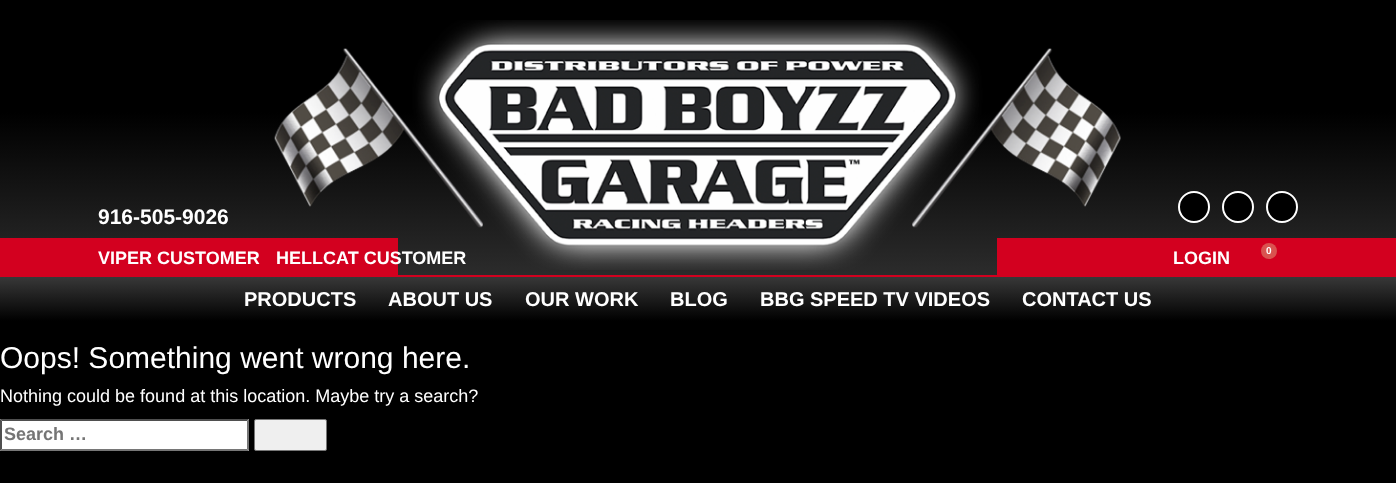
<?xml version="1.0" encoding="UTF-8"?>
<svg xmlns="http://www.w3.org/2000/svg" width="1396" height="483">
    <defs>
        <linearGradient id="g1" gradientUnits="userSpaceOnUse" x1="698" y1="0" x2="698" y2="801"><stop offset="0.65" stop-color="#000000"/><stop offset="1" stop-color="#393939"/></linearGradient>
        <linearGradient id="g2" gradientUnits="userSpaceOnUse" x1="698" y1="0" x2="698" y2="321"><stop offset="0.35" stop-color="#000000"/><stop offset="1" stop-color="#383838"/></linearGradient>
        <linearGradient id="g3" gradientUnits="userSpaceOnUse" x1="698" y1="277" x2="698" y2="321"><stop offset="0" stop-color="#383838"/><stop offset="1" stop-color="#000000"/></linearGradient>
    </defs>
    <rect width="100%" height="100%" fill="#FFFFFF"/>
    <rect x="0" y="321" width="1396" height="162" fill="url(#g1)"/>
    <rect x="0" y="0" width="1396" height="275" fill="url(#g2)"/>
    <text x="98" y="224" font-family="Liberation Sans" font-size="21" font-weight="700" fill="#FFFFFF">916-505-9026</text>
    <circle cx="1194" cy="207" r="15" fill="#000000" stroke="#FFFFFF" stroke-width="2"/>
    <circle cx="1238" cy="207" r="15" fill="#000000" stroke="#FFFFFF" stroke-width="2"/>
    <circle cx="1282" cy="207" r="15" fill="#000000" stroke="#FFFFFF" stroke-width="2"/>
    <image x="274" y="20" width="847" height="250" href="img_01.png"/>
    <rect x="0" y="275" width="1396" height="2" fill="#D3001F"/>
    <rect x="0" y="238" width="398" height="37" fill="#D3001F"/>
    <text x="98" y="264" font-family="Liberation Sans" font-size="18" font-weight="700" fill="#FFFFFF">VIPER CUSTOMER</text>
    <text x="276" y="264" font-family="Liberation Sans" font-size="18" font-weight="700" fill="#FFFFFF">HELLCAT CUSTOMER</text>
    <rect x="997" y="238" width="399" height="37" fill="#D3001F"/>
    <text x="1173" y="264" font-family="Liberation Sans" font-size="18" font-weight="700" fill="#FFFFFF">LOGIN</text>
    <circle cx="1269" cy="251" r="8" fill="#D9534F"/>
    <text x="1266" y="254" font-family="Liberation Sans" font-size="10" font-weight="700" fill="#FFFFFF">0</text>
    <rect x="0" y="277" width="1396" height="44" fill="url(#g3)"/>
    <text x="244" y="306" font-family="Liberation Sans" font-size="20" font-weight="700" fill="#FFFFFF">PRODUCTS</text>
    <text x="388" y="306" font-family="Liberation Sans" font-size="20" font-weight="700" fill="#FFFFFF">ABOUT US</text>
    <text x="525" y="306" font-family="Liberation Sans" font-size="20" font-weight="700" fill="#FFFFFF">OUR WORK</text>
    <text x="670" y="306" font-family="Liberation Sans" font-size="20" font-weight="700" fill="#FFFFFF">BLOG</text>
    <text x="760" y="306" font-family="Liberation Sans" font-size="20" font-weight="700" fill="#FFFFFF">BBG SPEED TV VIDEOS</text>
    <text x="1022" y="306" font-family="Liberation Sans" font-size="20" font-weight="700" fill="#FFFFFF">CONTACT US</text>
    <text x="0" y="368" font-family="Liberation Sans" font-size="30" fill="#FFFFFF">Oops! Something went wrong here.</text>
    <text x="0" y="402" font-family="Liberation Sans" font-size="18" fill="#FFFFFF">Nothing could be found at this location. Maybe try a search?</text>
    <rect x="0" y="419" width="249" height="32" fill="#FFFFFF"/>
    <path d="M 0 419 H 249 L 247 421 H 2 Z" fill="#4F4F4F"/>
    <path d="M 249 419 V 451 L 247 449 V 421 Z" fill="#767676"/>
    <path d="M 249 451 H 0 L 2 449 H 247 Z" fill="#767676"/>
    <path d="M 0 451 V 419 L 2 421 V 449 Z" fill="#4F4F4F"/>
    <text x="4" y="440" font-family="Liberation Sans" font-size="18" font-weight="700" fill="#757575">Search …</text>
    <rect x="254.5" y="419.5" width="72" height="31" rx="1.5" fill="#EFEFEF" stroke="#767676"/>
</svg>
